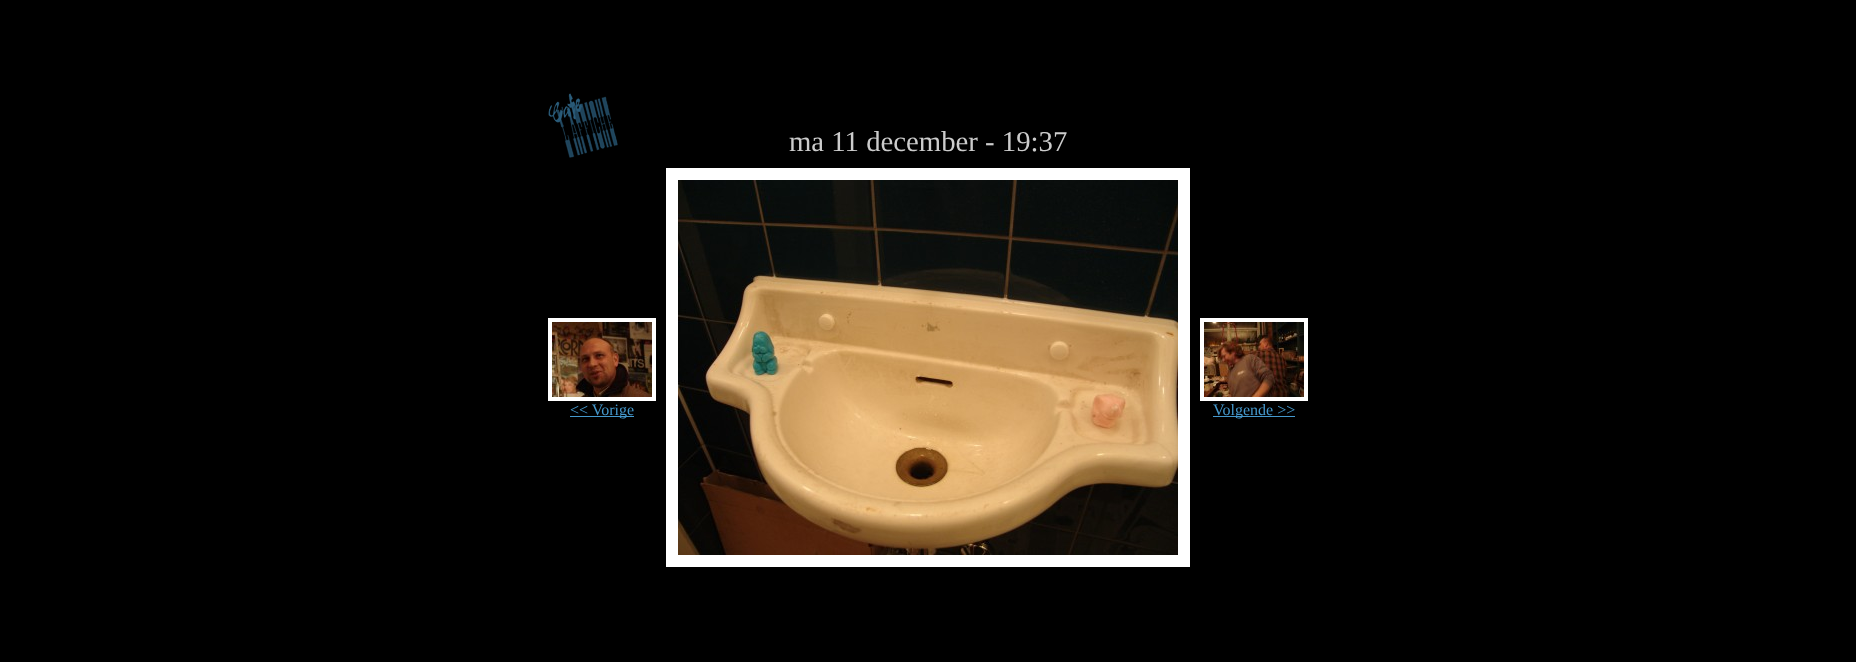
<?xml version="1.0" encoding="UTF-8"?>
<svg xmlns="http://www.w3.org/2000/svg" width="1856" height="662">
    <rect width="100%" height="100%" fill="#000000"/>
    <image x="548" y="93" width="70" height="65" href="img_01.png"/>
    <text x="789" y="151" font-family="Liberation Serif" font-size="28.75" fill="#CCCCCC">ma 11 december - 19:37</text>
    <rect x="550" y="320" width="104" height="79" fill="none" stroke="#FFFFFF" stroke-width="4"/>
    <image x="552" y="322" width="100" height="75" href="img_02.png"/>
    <rect x="570" y="416" width="64" height="1" fill="#4598CC"/>
    <text x="570" y="415" font-family="Liberation Serif" font-size="16" fill="#4598CC">&lt;&lt; Vorige</text>
    <rect x="672" y="174" width="512" height="387" fill="none" stroke="#FFFFFF" stroke-width="12"/>
    <image x="678" y="180" width="500" height="375" href="img_03.png"/>
    <rect x="1202" y="320" width="104" height="79" fill="none" stroke="#FFFFFF" stroke-width="4"/>
    <image x="1204" y="322" width="100" height="75" href="img_04.png"/>
    <rect x="1213" y="416" width="82" height="1" fill="#4598CC"/>
    <text x="1213" y="415" font-family="Liberation Serif" font-size="16" fill="#4598CC">Volgende &gt;&gt;</text>
</svg>
